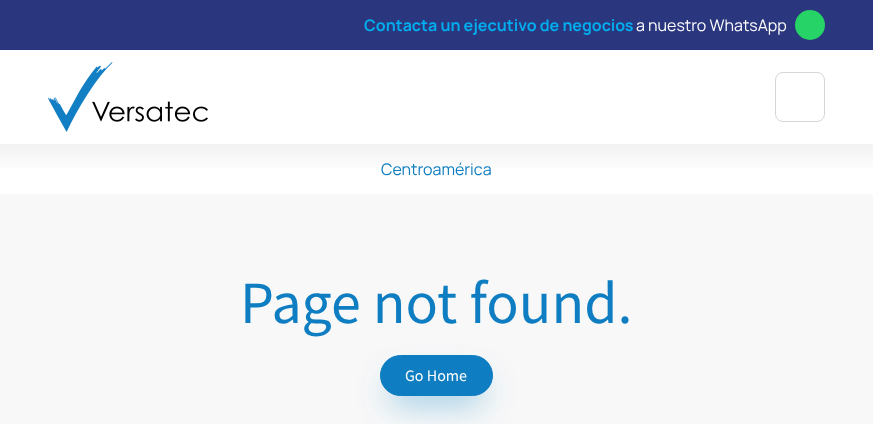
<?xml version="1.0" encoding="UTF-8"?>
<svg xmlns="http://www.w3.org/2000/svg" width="873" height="424">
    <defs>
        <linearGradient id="g1" gradientUnits="userSpaceOnUse" x1="437" y1="144" x2="437" y2="174"><stop offset="0" stop-color="#F2F2F2"/><stop offset="1" stop-color="#FFFFFF"/></linearGradient>
        <filter id="blur1" x="-50%" y="-200%" width="200%" height="500%"><feGaussianBlur stdDeviation="16"/></filter>
    </defs>
    <rect width="100%" height="100%" fill="#F8F8F8"/>
    <rect x="0" y="0" width="873" height="50" fill="#2A367D"/>
    <text x="364" y="31" font-family="Manrope" font-size="16" font-weight="700" fill="#00ADEE">Contacta un ejecutivo de negocios</text>
    <text x="636" y="31" font-family="Manrope" font-size="16" fill="#FFFFFF">a nuestro WhatsApp</text>
    <circle cx="810" cy="25" r="15" fill="#25D366"/>
    <rect x="0" y="50" width="873" height="144" fill="#FFFFFF"/>
    <image x="48" y="62" width="160" height="70" href="img_01.png"/>
    <rect x="775.5" y="72.5" width="49" height="49" rx="7.5" fill="none" stroke="#D6D6D6"/>
    <rect x="0" y="144" width="873" height="24" fill="url(#g1)"/>
    <text x="381" y="175" font-family="Manrope" font-size="16" fill="#0E7DC1">Centroamérica</text>
    <text x="240" y="323" font-family="Source Sans Pro" font-size="60" fill="#0E7DC1">Page not found.</text>
    <rect x="388" y="379" width="97" height="25" rx="12.5" fill="#0E7DC1" fill-opacity="0.4" filter="url(#blur1)"/>
    <rect x="380.5" y="355.5" width="112" height="40" rx="20" fill="#0E7DC1" stroke="#0E7DC1"/>
    <text x="405" y="381" font-family="Source Sans Pro" font-size="16" fill="#FFFFFF">Go Home</text>
</svg>
